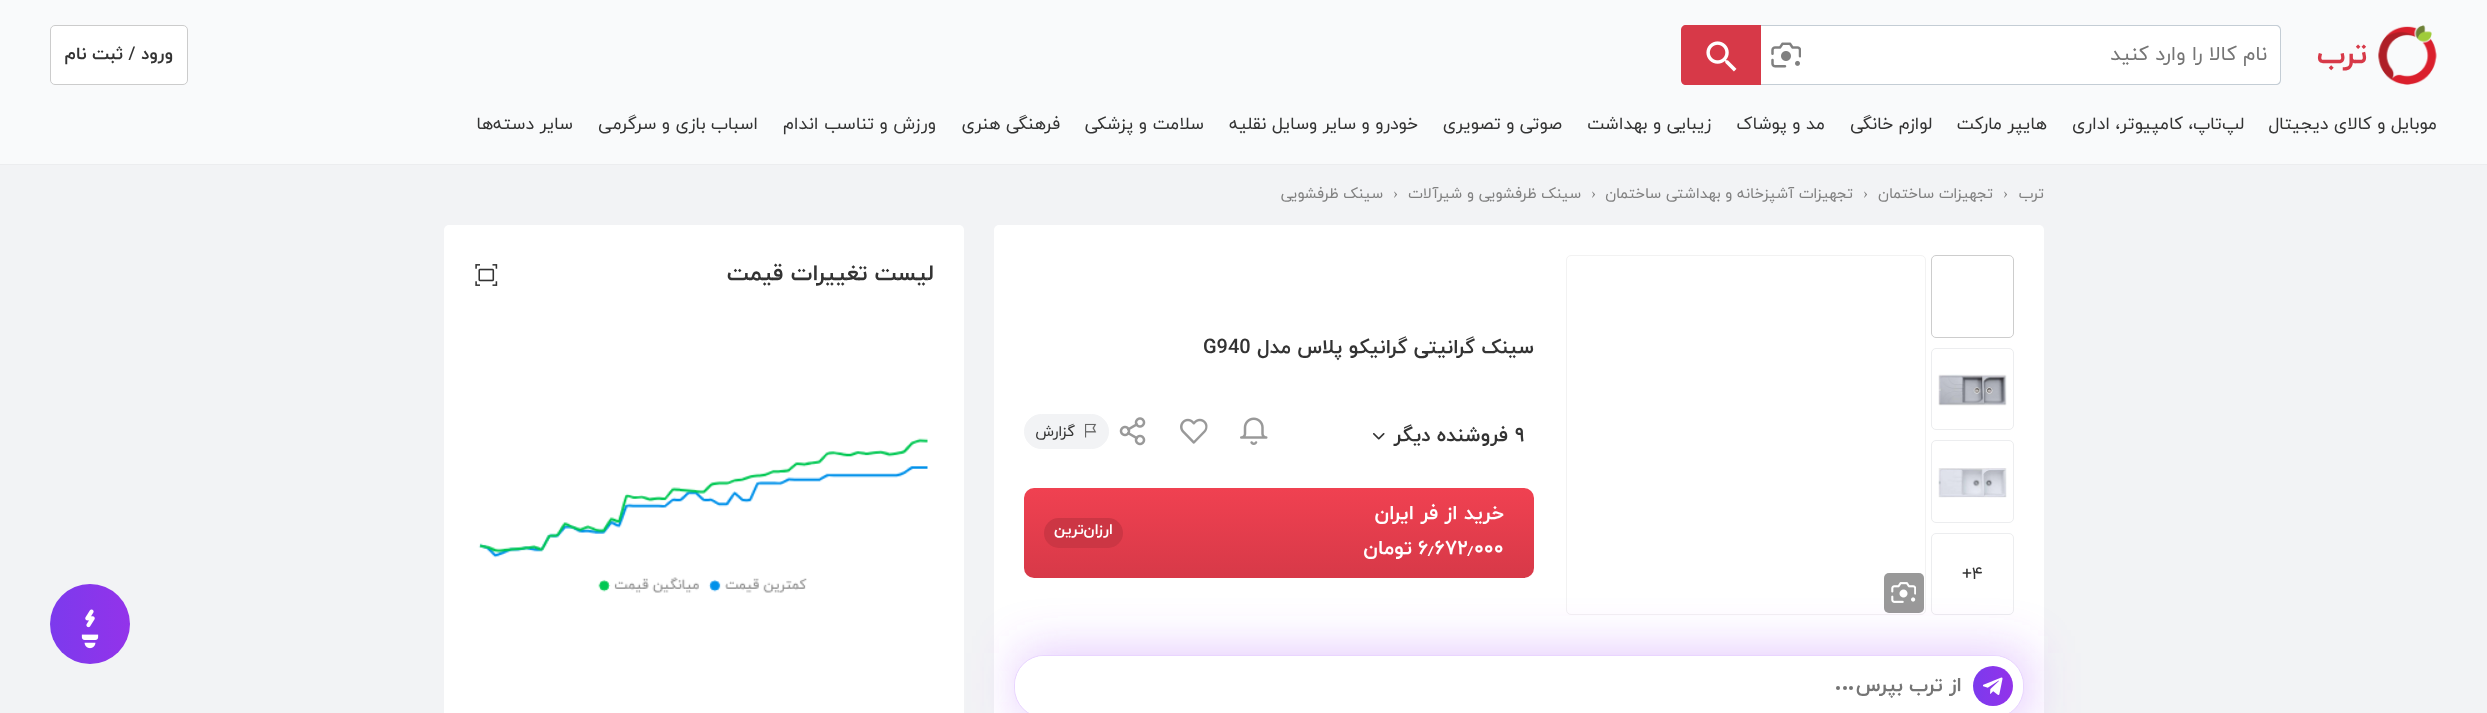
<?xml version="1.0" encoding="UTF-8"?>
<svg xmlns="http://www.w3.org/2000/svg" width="2487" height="713">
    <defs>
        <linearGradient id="g1" gradientUnits="userSpaceOnUse" x1="1279" y1="488" x2="1279" y2="578"><stop offset="0" stop-color="#F04151"/><stop offset="1" stop-color="#D73948"/></linearGradient>
        <filter id="blur1" x="-50%" y="-200%" width="200%" height="500%"><feGaussianBlur stdDeviation="25"/></filter>
        <linearGradient id="g2" gradientUnits="userSpaceOnUse" x1="1973" y1="686" x2="2013" y2="686"><stop offset="0" stop-color="#7C3AED"/><stop offset="1" stop-color="#9333EA"/></linearGradient>
        <linearGradient id="g3" gradientUnits="userSpaceOnUse" x1="50" y1="624" x2="130" y2="624"><stop offset="0" stop-color="#7C3AED"/><stop offset="1" stop-color="#9333EA"/></linearGradient>
    </defs>
    <rect width="100%" height="100%" fill="#F2F3F5"/>
    <rect x="0" y="0" width="2487" height="164" fill="#F9FAFB"/>
    <rect x="0" y="164" width="2487" height="1" fill="#ECEDEF"/>
    <image x="2378" y="25" width="59" height="60" href="img_01.png"/>
    <text x="2367" y="63" font-family="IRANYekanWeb" font-size="30" font-weight="700" direction="rtl" fill="#D73948">ترب</text>
    <path d="M 1761 25 H 2276 C 2279 25 2281 27 2281 30 V 80 C 2281 83 2279 85 2276 85 H 1761 Z" fill="#FFFFFF"/>
    <path d="M 1761 25 H 2276 C 2279 25 2281 27 2281 30 V 80 C 2281 83 2279 85 2276 85 H 1761 Z M 1761 26 H 2276 C 2278 26 2280 28 2280 30 V 80 C 2280 82 2278 84 2276 84 H 1761 Z" fill="#C4CDD5" fill-rule="evenodd"/>
    <text x="2267" y="60" font-family="IRANYekanWeb" font-size="20" direction="rtl" fill="#757575">نام کالا را وارد کنید</text>
    <image x="1771" y="42" width="30" height="26" href="img_02.png"/>
    <path d="M 1686 25 H 1761 V 85 H 1686 C 1683 85 1681 83 1681 80 V 30 C 1681 27 1683 25 1686 25 Z" fill="#D73948"/>
    <image x="1706" y="41" width="31" height="31" href="img_03.png"/>
    <rect x="50.5" y="25.5" width="137" height="59" rx="4.5" fill="#FFFFFF" stroke="#CCCCCC"/>
    <text x="173" y="59" font-family="IRANYekanWeb" font-size="17.5" font-weight="700" direction="rtl" fill="#333333">ورود / ثبت نام</text>
    <text x="2437" y="129" font-family="IRANYekanWeb" font-size="17.5" direction="rtl" fill="#333333">موبایل و کالای دیجیتال</text>
    <text x="2244" y="129" font-family="IRANYekanWeb" font-size="17.5" direction="rtl" fill="#333333">لپ‌تاپ، کامپیوتر، اداری</text>
    <text x="2047" y="129" font-family="IRANYekanWeb" font-size="17.5" direction="rtl" fill="#333333">هایپر مارکت</text>
    <text x="1932" y="129" font-family="IRANYekanWeb" font-size="17.5" direction="rtl" fill="#333333">لوازم خانگی</text>
    <text x="1825" y="129" font-family="IRANYekanWeb" font-size="17.5" direction="rtl" fill="#333333">مد و پوشاک</text>
    <text x="1711" y="129" font-family="IRANYekanWeb" font-size="17.5" direction="rtl" fill="#333333">زیبایی و بهداشت</text>
    <text x="1562" y="129" font-family="IRANYekanWeb" font-size="17.5" direction="rtl" fill="#333333">صوتی و تصویری</text>
    <text x="1418" y="129" font-family="IRANYekanWeb" font-size="17.5" direction="rtl" fill="#333333">خودرو و سایر وسایل نقلیه</text>
    <text x="1204" y="129" font-family="IRANYekanWeb" font-size="17.5" direction="rtl" fill="#333333">سلامت و پزشکی</text>
    <text x="1060" y="129" font-family="IRANYekanWeb" font-size="17.5" direction="rtl" fill="#333333">فرهنگی هنری</text>
    <text x="936" y="129" font-family="IRANYekanWeb" font-size="17.5" direction="rtl" fill="#333333">ورزش و تناسب اندام</text>
    <text x="758" y="129" font-family="IRANYekanWeb" font-size="17.5" direction="rtl" fill="#333333">اسباب بازی و سرگرمی</text>
    <text x="573" y="129" font-family="IRANYekanWeb" font-size="17.5" direction="rtl" fill="#333333">سایر دسته‌ها</text>
    <text x="2044" y="198" font-family="IRANYekanWeb" font-size="15" direction="rtl" fill="#808080">ترب</text>
    <text x="2003" y="198" font-family="Liberation Serif" font-size="15" fill="#808080">›</text>
    <text x="1993" y="198" font-family="IRANYekanWeb" font-size="15" direction="rtl" fill="#808080">تجهیزات ساختمان</text>
    <text x="1863" y="198" font-family="Liberation Serif" font-size="15" fill="#808080">›</text>
    <text x="1853" y="198" font-family="IRANYekanWeb" font-size="15" direction="rtl" fill="#808080">تجهیزات آشپزخانه و بهداشتی ساختمان</text>
    <text x="1591" y="198" font-family="Liberation Serif" font-size="15" fill="#808080">›</text>
    <text x="1581" y="198" font-family="IRANYekanWeb" font-size="15" direction="rtl" fill="#808080">سینک ظرفشویی و شیرآلات</text>
    <text x="1393" y="198" font-family="Liberation Serif" font-size="15" fill="#808080">›</text>
    <text x="1383" y="198" font-family="IRANYekanWeb" font-size="15" direction="rtl" fill="#808080">سینک ظرفشویی</text>
    <rect x="994" y="225" width="1050" height="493" rx="5" fill="#FFFFFF"/>
    <rect x="1024" y="488" width="510" height="90" rx="10" fill="url(#g1)"/>
    <rect x="1931.5" y="533.5" width="82" height="81" rx="4.5" fill="none" stroke="#ECEDEF"/>
    <rect x="1566.5" y="255.5" width="359" height="359" rx="4.5" fill="none" stroke="#F2F2F2"/>
    <rect x="1021" y="653" width="1005" height="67" fill="#A855F7" fill-opacity="0.35" filter="url(#blur1)"/>
    <rect x="444" y="225" width="520" height="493" rx="5" fill="#FFFFFF"/>
    <text x="934" y="280" font-family="IRANYekanWeb" font-size="22.5" font-weight="700" direction="rtl" fill="#333333">لیست تغییرات قیمت</text>
    <image x="475" y="264" width="23" height="22" href="img_04.png"/>
    <image x="478" y="438" width="450" height="155" href="img_05.png"/>
    <text x="1534" y="353" font-family="IRANYekanWeb" font-size="20" font-weight="700" direction="rtl" fill="#333333">سینک گرانیتی گرانیکو پلاس مدل</text>
    <text x="1203" y="353" font-family="IRANYekanWeb" font-size="20" font-weight="700" fill="#333333">G940</text>
    <text x="1515" y="441" font-family="IRANYekanWeb" font-size="20" font-weight="700" fill="#333333">۹</text>
    <text x="1508" y="441" font-family="IRANYekanWeb" font-size="20" font-weight="700" direction="rtl" fill="#333333">فروشنده دیگر</text>
    <image x="1373" y="433" width="12" height="7" href="img_06.png"/>
    <image x="1240" y="417" width="28" height="28" href="img_07.png"/>
    <image x="1180" y="418" width="28" height="26" href="img_08.png"/>
    <image x="1119" y="417" width="27" height="29" href="img_09.png"/>
    <rect x="1024.5" y="414.5" width="84" height="34" rx="17" fill="#F2F3F5" stroke="#F2F3F5"/>
    <image x="1085" y="423" width="12" height="15" href="img_10.png"/>
    <text x="1075" y="436" font-family="IRANYekanWeb" font-size="15" direction="rtl" fill="#333333">گزارش</text>
    <text x="1504" y="519" font-family="IRANYekanWeb" font-size="20" font-weight="700" direction="rtl" fill="#FFFFFF">خرید از فر ایران</text>
    <text x="1418" y="554" font-family="IRANYekanWeb" font-size="20" font-weight="700" fill="#FFFFFF">۶٫۶۷۲٫۰۰۰</text>
    <text x="1412" y="554" font-family="IRANYekanWeb" font-size="20" font-weight="700" direction="rtl" fill="#FFFFFF">تومان</text>
    <rect x="1044" y="518" width="79" height="30" rx="15" fill="#CC3644"/>
    <text x="1113" y="534" font-family="IRANYekanWeb" font-size="15" font-weight="700" direction="rtl" fill="#FFFFFF">ارزان‌ترین</text>
    <rect x="1931.5" y="255.5" width="82" height="82" rx="4.5" fill="none" stroke="#CDCDCD"/>
    <rect x="1931.5" y="348.5" width="82" height="81" rx="4.5" fill="none" stroke="#ECEDEF"/>
    <image x="1938" y="374" width="69" height="32" href="img_11.png"/>
    <rect x="1931.5" y="440.5" width="82" height="82" rx="4.5" fill="none" stroke="#ECEDEF"/>
    <image x="1938" y="468" width="69" height="30" href="img_12.png"/>
    <text x="1972" y="579" font-family="IRANYekanWeb" font-size="17.5" fill="#333333">۴</text>
    <text x="1962" y="579" font-family="IRANYekanWeb" font-size="17.5" fill="#333333">+</text>
    <rect x="1884" y="573" width="40" height="40" rx="5" fill="#333333" fill-opacity="0.5"/>
    <image x="1891" y="582" width="25" height="21" href="img_13.png"/>
    <rect x="1014.5" y="655.5" width="1009" height="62" rx="29.5" fill="#FFFFFF" stroke="#E9D5FF"/>
    <rect x="1015" y="656" width="1008" height="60" rx="30" fill="#FFFFFF"/>
    <circle cx="1993" cy="686" r="20" fill="url(#g2)"/>
    <image x="1983" y="677" width="20" height="18" href="img_14.png"/>
    <text x="1962" y="691" font-family="IRANYekanWeb" font-size="20" font-weight="700" direction="rtl" fill="#757575">از ترب بپرس</text>
    <circle cx="1851" cy="688" r="2" fill="#737373"/>
    <circle cx="1845" cy="688" r="2" fill="#737373"/>
    <circle cx="1838" cy="688" r="2" fill="#737373"/>
    <circle cx="90" cy="624" r="40" fill="url(#g3)"/>
    <image x="81" y="609" width="18" height="40" href="img_15.png"/>
</svg>
